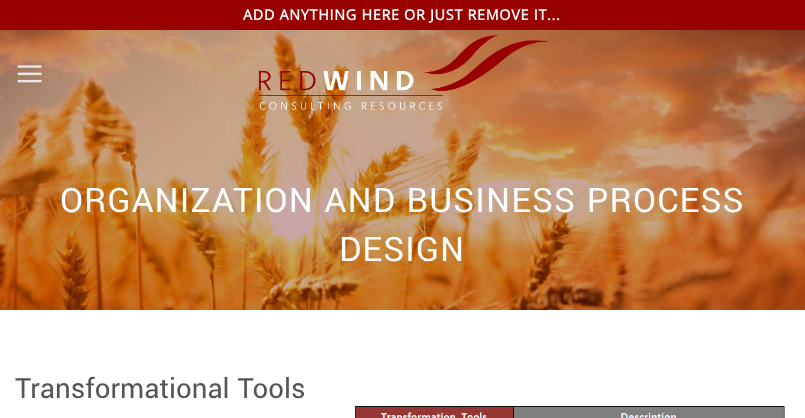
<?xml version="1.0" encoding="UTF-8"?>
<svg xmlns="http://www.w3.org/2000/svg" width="805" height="418">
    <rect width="100%" height="100%" fill="#FFFFFF"/>
    <rect x="0" y="0" width="805" height="30" fill="#990000"/>
    <text x="243" y="20" font-family="Open Sans" font-size="14.4" font-weight="700" letter-spacing="0.7" fill="#FFFFFF">ADD ANYTHING HERE OR JUST REMOVE IT...</text>
    <image x="0" y="30" width="805" height="280" href="img_03.png"/>
    <image x="17" y="65" width="25" height="18" href="img_01.png"/>
    <image x="258" y="35" width="291" height="75" href="img_02.png"/>
    <text x="60" y="212" font-family="Yantramanav" font-size="37.5" letter-spacing="1.1" fill="#FFFFFF">ORGANIZATION AND BUSINESS PROCESS</text>
    <text x="339" y="261" font-family="Yantramanav" font-size="37.5" letter-spacing="1.1" fill="#FFFFFF">DESIGN</text>
    <text x="15" y="398" font-family="Yantramanav" font-size="30.75" fill="#555555">Transformational Tools</text>
    <image x="355" y="406" width="430" height="12" href="img_04.png"/>
</svg>
